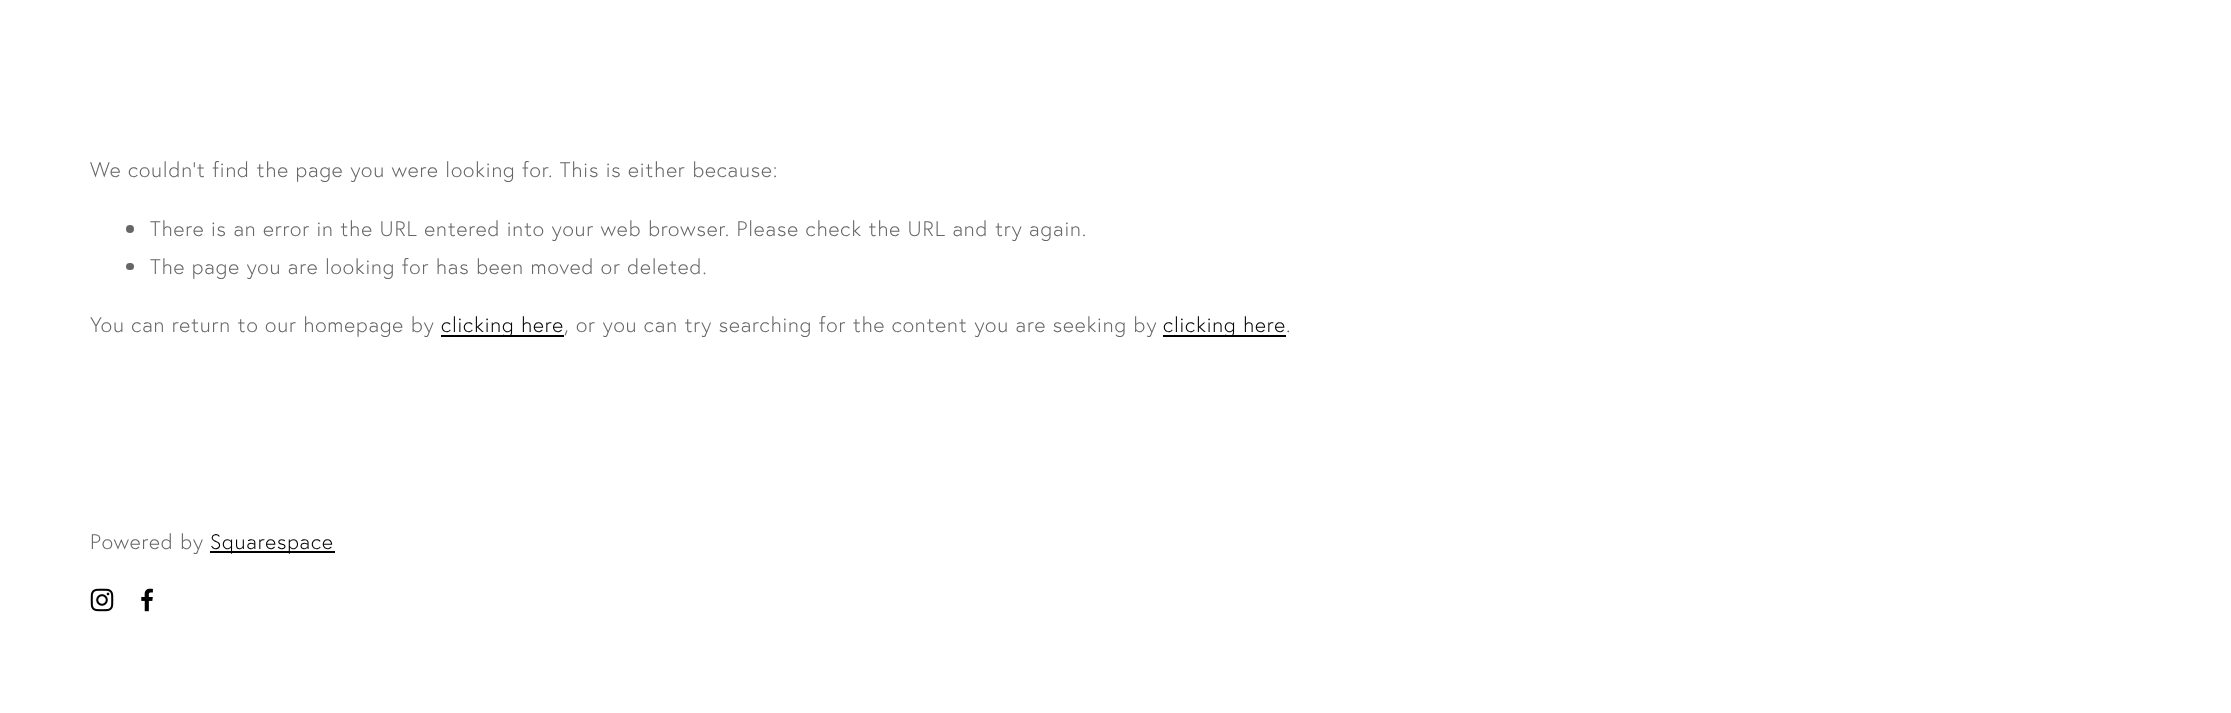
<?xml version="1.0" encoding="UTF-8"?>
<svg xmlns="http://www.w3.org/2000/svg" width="2231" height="713">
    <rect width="100%" height="100%" fill="#FFFFFF"/>
    <text x="90" y="177" font-family="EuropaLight" font-size="21" font-weight="300" letter-spacing="0.85" fill="#666666">We couldn't find the page you were looking for. This is either because:</text>
    <circle cx="130" cy="229" r="4" fill="#666666"/>
    <text x="150" y="236" font-family="EuropaLight" font-size="21" font-weight="300" letter-spacing="0.85" fill="#666666">There is an error in the URL entered into your web browser. Please check the URL and try again.</text>
    <rect x="126" y="263" width="8" height="7" rx="3.5" fill="#666666"/>
    <text x="150" y="274" font-family="EuropaLight" font-size="21" font-weight="300" letter-spacing="0.85" fill="#666666">The page you are looking for has been moved or deleted.</text>
    <text x="90" y="332" font-family="EuropaLight" font-size="21" font-weight="300" letter-spacing="0.85" fill="#666666">You can return to our homepage by</text>
    <rect x="441" y="335" width="123" height="2" fill="#000000"/>
    <text x="441" y="332" font-family="EuropaLight" font-size="21" font-weight="300" letter-spacing="0.85" fill="#000000">clicking here</text>
    <text x="564" y="332" font-family="EuropaLight" font-size="21" font-weight="300" letter-spacing="0.85" fill="#666666">, or you can try searching for the content you are seeking by</text>
    <rect x="1163" y="335" width="123" height="2" fill="#000000"/>
    <text x="1163" y="332" font-family="EuropaLight" font-size="21" font-weight="300" letter-spacing="0.85" fill="#000000">clicking here</text>
    <text x="1286" y="332" font-family="EuropaLight" font-size="21" font-weight="300" letter-spacing="0.85" fill="#666666">.</text>
    <text x="90" y="549" font-family="EuropaLight" font-size="21" font-weight="300" letter-spacing="0.85" fill="#666666">Powered by</text>
    <rect x="210" y="551" width="125" height="2" fill="#000000"/>
    <text x="210" y="549" font-family="EuropaLight" font-size="21" font-weight="300" letter-spacing="0.85" fill="#000000">Squarespace</text>
    <image x="90" y="588" width="24" height="24" href="img_01.png"/>
    <image x="141" y="588" width="12" height="24" href="img_02.png"/>
</svg>
